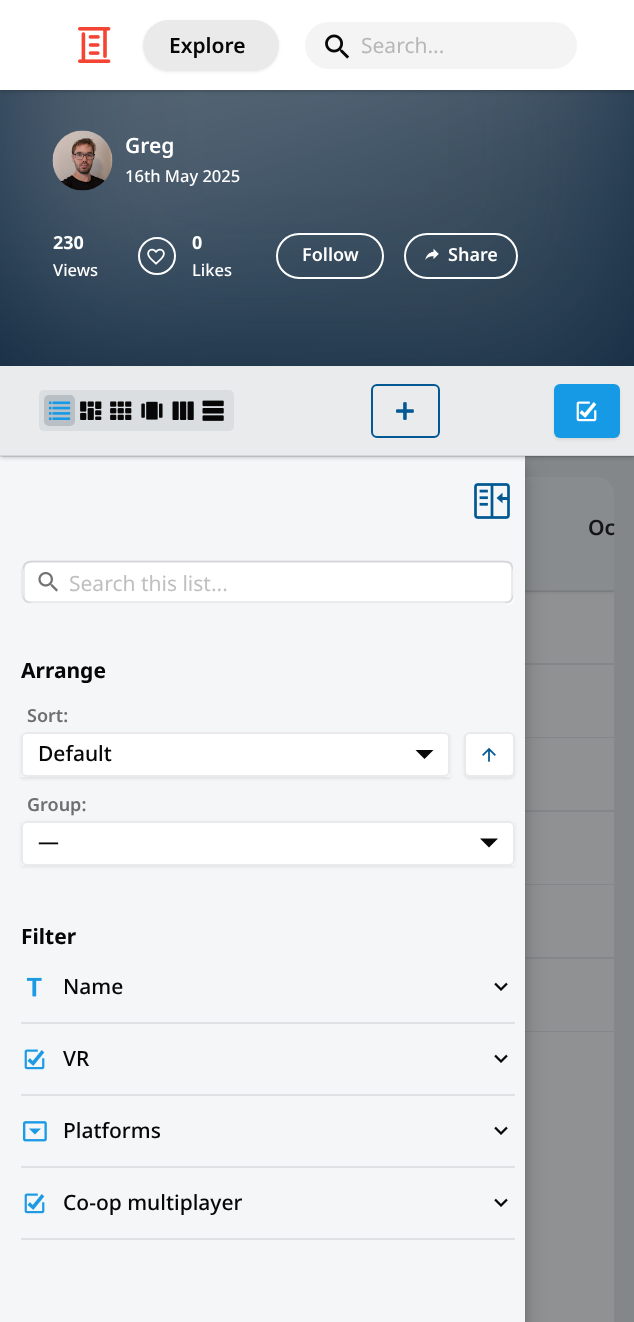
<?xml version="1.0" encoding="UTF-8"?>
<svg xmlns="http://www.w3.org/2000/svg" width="634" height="1322">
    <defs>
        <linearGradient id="g1" gradientUnits="userSpaceOnUse" x1="317" y1="366" x2="317" y2="-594"><stop offset="0" stop-color="#08213D"/><stop offset="1" stop-color="#082949"/></linearGradient>
        <filter id="blur1" x="-50%" y="-200%" width="200%" height="500%"><feGaussianBlur stdDeviation="1.5"/></filter>
        <filter id="blur2" x="-50%" y="-200%" width="200%" height="500%"><feGaussianBlur stdDeviation="2"/></filter>
        <clipPath id="clip1"><path d="M 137 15 H 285 V 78 H 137 Z M 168.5 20 H 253.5 C 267.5 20 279 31.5 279 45.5 C 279 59.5 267.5 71 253.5 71 H 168.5 C 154.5 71 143 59.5 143 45.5 C 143 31.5 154.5 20 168.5 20 Z" clip-rule="evenodd"/></clipPath>
        <clipPath id="clip2"><rect x="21" y="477" width="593" height="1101" rx="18"/></clipPath>
        <filter id="blur3" x="-50%" y="-200%" width="200%" height="500%"><feGaussianBlur stdDeviation="4.5"/></filter>
        <filter id="blur4" x="-50%" y="-200%" width="200%" height="500%"><feGaussianBlur stdDeviation="11"/></filter>
        <clipPath id="clip3"><rect x="21" y="528" width="504" height="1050" rx="18"/></clipPath>
        <radialGradient id="g2" gradientUnits="userSpaceOnUse" cx="0" cy="0" r="1" gradientTransform="matrix(252 0 0 9 273 528)"><stop offset="0" stop-color="#C3C5C6"/><stop offset="1" stop-color="#F4F6F8"/></radialGradient>
        <linearGradient id="g3" gradientUnits="userSpaceOnUse" x1="273" y1="528" x2="273" y2="588"><stop offset="0.3" stop-color="#F4F6F8"/><stop offset="1" stop-color="#F4F6F8" stop-opacity="0"/></linearGradient>
        <clipPath id="clip4"><path d="M 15 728 H 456 V 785 H 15 Z M 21 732 H 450 V 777 H 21 Z" clip-rule="evenodd"/></clipPath>
        <clipPath id="clip5"><path d="M 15 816 H 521 V 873 H 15 Z M 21 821 H 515 V 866 H 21 Z" clip-rule="evenodd"/></clipPath>
    </defs>
    <rect width="100%" height="100%" fill="#FFFFFF"/>
    <rect x="0" y="90" width="634" height="276" fill="url(#g1)"/>
    <image x="0" y="90" width="634" height="276" href="img_03.png"/>
    <rect x="2" y="3" width="631" height="87" fill="#000000" fill-opacity="0.15" filter="url(#blur1)"/>
    <rect x="0" y="2" width="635" height="90" fill="#000000" fill-opacity="0.15" filter="url(#blur2)"/>
    <rect x="0" y="0" width="634" height="90" fill="#FFFFFF"/>
    <image x="78" y="27" width="33" height="36" href="img_01.png"/>
    <g clip-path="url(#clip1)">
        <rect x="143" y="21" width="136" height="51" rx="25.5" fill="#000000" fill-opacity="0.08" filter="url(#blur1)"/>
    </g>
    <rect x="143" y="20" width="136" height="51" rx="25.5" fill="#71717B" fill-opacity="0.15"/>
    <text x="169" y="53" font-family="Noto Sans" font-size="21" font-weight="600" fill="#070707">Explore</text>
    <rect x="304" y="21" width="274" height="49" rx="24.5" fill="#F4F4F5" stroke="#FFFFFF" stroke-width="2"/>
    <image x="325" y="34" width="25" height="25" href="img_02.png"/>
    <text x="361" y="53" font-family="Noto Sans" font-size="21" fill="#B7B7B8">Search...</text>
    <image x="52" y="130" width="61" height="61" href="img_04.png"/>
    <text x="125" y="153" font-family="Noto Sans" font-size="21" font-weight="600" fill="#FFFFFF">Greg</text>
    <text x="125" y="182" font-family="Noto Sans" font-size="16.5" font-weight="500" fill="#FFFFFF">16th May 2025</text>
    <text x="53" y="249" font-family="Noto Sans" font-size="18" font-weight="700" fill="#FFFFFF">230</text>
    <text x="53" y="276" font-family="Noto Sans" font-size="16.5" font-weight="500" fill="#FFFFFF">Views</text>
    <circle cx="157" cy="256" r="18" fill="none" stroke="#FFFFFF" stroke-width="2"/>
    <image x="147" y="248" width="18" height="17" href="img_05.png"/>
    <text x="192" y="249" font-family="Noto Sans" font-size="18" font-weight="700" fill="#FFFFFF">0</text>
    <text x="192" y="276" font-family="Noto Sans" font-size="16.5" font-weight="500" fill="#FFFFFF">Likes</text>
    <rect x="277" y="234" width="106" height="44" rx="22" fill="none" stroke="#FFFFFF" stroke-width="2"/>
    <text x="302" y="261" font-family="Noto Sans" font-size="18" font-weight="600" fill="#FFFFFF">Follow</text>
    <rect x="405" y="234" width="112" height="44" rx="22" fill="none" stroke="#FFFFFF" stroke-width="2"/>
    <image x="425" y="248" width="14" height="12" href="img_06.png"/>
    <text x="448" y="261" font-family="Noto Sans" font-size="18" font-weight="600" fill="#FFFFFF">Share</text>
    <rect x="525" y="456" width="109" height="866" fill="#848789"/>
    <rect x="21" y="477" width="593" height="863" rx="18" fill="#8F9193"/>
    <path d="M 39 477 H 596 C 606 477 614 485 614 495 V 1152 H 21 V 495 C 21 485 29 477 39 477 Z" fill="#8F9193"/>
    <g clip-path="url(#clip2)">
        <rect x="21" y="479" width="593" height="114" fill="#0F1113" fill-opacity="0.08" filter="url(#blur1)"/>
    </g>
    <path d="M 39 477 H 596 C 606 477 614 485 614 495 V 591 H 21 V 495 C 21 485 29 477 39 477 Z" fill="#898C8F"/>
    <path d="M 39 477 H 596 C 606 477 614 485 614 495 V 590 H 21 V 495 C 21 485 29 477 39 477 Z" fill="#898C8F"/>
    <rect x="525" y="590" width="89" height="2" fill="#1A1A29" fill-opacity="0.09"/>
    <rect x="525" y="663" width="89" height="2" fill="#848689"/>
    <rect x="525" y="737" width="89" height="1" fill="#848689"/>
    <rect x="525" y="810" width="89" height="2" fill="#848689"/>
    <rect x="525" y="884" width="89" height="1" fill="#848689"/>
    <rect x="525" y="957" width="89" height="2" fill="#848689"/>
    <rect x="525" y="1031" width="89" height="1" fill="#848689"/>
    <rect x="3" y="462" width="519" height="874" fill="#000000" fill-opacity="0.25" filter="url(#blur3)"/>
    <rect x="2" y="465" width="522" height="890" fill="#000000" fill-opacity="0.25" filter="url(#blur4)"/>
    <rect x="0" y="456" width="525" height="866" fill="#F4F6F8"/>
    <rect x="2" y="369" width="631" height="87" fill="#000000" fill-opacity="0.15" filter="url(#blur1)"/>
    <rect x="0" y="368" width="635" height="90" fill="#000000" fill-opacity="0.15" filter="url(#blur2)"/>
    <rect x="0" y="366" width="634" height="90" fill="#E9EBEC"/>
    <rect x="0" y="455" width="634" height="2" fill="#041827" fill-opacity="0.09"/>
    <rect x="39" y="390" width="195" height="41" rx="5" fill="#DADEE0"/>
    <rect x="44" y="395" width="31" height="31" rx="5" fill="#B8C0C6"/>
    <image x="48" y="401" width="23" height="19" href="img_07.png"/>
    <image x="80" y="401" width="22" height="19" href="img_08.png"/>
    <image x="110" y="401" width="22" height="19" href="img_09.png"/>
    <image x="141" y="401" width="22" height="19" href="img_10.png"/>
    <image x="172" y="401" width="22" height="19" href="img_11.png"/>
    <image x="202" y="400" width="22" height="21" href="img_12.png"/>
    <rect x="372" y="385" width="67" height="52" rx="5" fill="none" stroke="#015893" stroke-width="2"/>
    <image x="396" y="402" width="18" height="18" href="img_13.png"/>
    <rect x="554" y="386" width="66" height="54" rx="6" fill="#000000" fill-opacity="0.08" filter="url(#blur1)"/>
    <rect x="554" y="384" width="66" height="54" rx="6" fill="#179AE6"/>
    <image x="576" y="401" width="21" height="21" href="img_14.png"/>
    <text x="588" y="535" font-family="Noto Sans" font-size="21" font-weight="600" fill="#131517">Oc</text>
    <image x="474" y="483" width="36" height="36" href="img_15.png"/>
    <g clip-path="url(#clip3)">
        <rect x="23" y="528" width="500" height="9" fill="url(#g2)"/>
    </g>
    <path d="M 39 528 H 507 C 517 528 525 536 525 546 V 588 H 21 V 546 C 21 536 29 528 39 528 Z" fill="url(#g3)"/>
    <rect x="21" y="560" width="494" height="45" rx="12" fill="#FFFFFF"/>
    <rect x="22" y="561" width="492" height="43" rx="11" fill="none" stroke="#15122B" stroke-opacity="0.09" stroke-width="2"/>
    <path d="M 25 602 C 26 604 28 605 30 605 H 509 C 512 605 515 602 515 599 V 569 C 515 567 514 565 512 564 L 513 567 V 597 C 513 600 510 603 507 603 H 28 C 27 603 26 602 25 602 Z" fill="#FFFFFF" fill-opacity="0.5"/>
    <rect x="24" y="562" width="488" height="40" rx="5" fill="none" stroke="#15122B" stroke-opacity="0.09" stroke-width="2"/>
    <image x="38" y="572" width="20" height="20" href="img_16.png"/>
    <text x="69" y="591" font-family="Noto Sans" font-size="21" fill="#BFBFBF">Search this list...</text>
    <text x="21" y="678" font-family="Noto Sans" font-size="21" font-weight="700" fill="#070707">Arrange</text>
    <text x="27" y="722" font-family="Noto Sans" font-size="18" font-weight="600" fill="#6E6F70">Sort:</text>
    <g clip-path="url(#clip4)">
        <rect x="21" y="734" width="429" height="45" fill="#000000" fill-opacity="0.08" filter="url(#blur1)"/>
    </g>
    <rect x="22" y="733" width="427" height="43" rx="5" fill="#FFFFFF" stroke="#EAEAEC" stroke-width="2"/>
    <text x="38" y="761" font-family="Noto Sans" font-size="21" font-weight="500" fill="#070707">Default</text>
    <path d="M 415.5 750 H 433.5 L 424.5 759 Z" fill="#080808"/>
    <rect x="464" y="734" width="51" height="45" rx="6" fill="#000000" fill-opacity="0.08" filter="url(#blur1)"/>
    <rect x="464" y="732" width="51" height="45" rx="6" fill="#FFFFFF"/>
    <rect x="465" y="733" width="49" height="43" rx="5" fill="none" stroke="#15122B" stroke-opacity="0.09" stroke-width="2"/>
    <image x="482" y="747" width="14" height="15" href="img_17.png"/>
    <text x="27" y="811" font-family="Noto Sans" font-size="18" font-weight="600" fill="#6E6F70">Group:</text>
    <g clip-path="url(#clip5)">
        <rect x="21" y="822" width="494" height="45" fill="#000000" fill-opacity="0.08" filter="url(#blur1)"/>
    </g>
    <rect x="21" y="821" width="494" height="45" rx="6" fill="#FFFFFF"/>
    <rect x="22" y="822" width="492" height="43" rx="5" fill="none" stroke="#15122B" stroke-opacity="0.09" stroke-width="2"/>
    <text x="38" y="849" font-family="Noto Sans" font-size="21" font-weight="500" fill="#070707">—</text>
    <path d="M 480 838.5 H 498 L 489 847.5 Z" fill="#080808"/>
    <text x="21" y="944" font-family="Noto Sans" font-size="21" font-weight="700" fill="#070707">Filter</text>
    <rect x="21" y="1022" width="494" height="2" fill="#DEE2E5"/>
    <image x="26" y="977" width="16" height="20" href="img_18.png"/>
    <text x="63" y="994" font-family="Noto Sans" font-size="21" font-weight="500" fill="#070707">Name</text>
    <image x="494" y="982" width="14" height="9" href="img_19.png"/>
    <rect x="21" y="1094" width="494" height="2" fill="#DEE2E5"/>
    <image x="24" y="1049" width="21" height="21" href="img_20.png"/>
    <text x="63" y="1066" font-family="Noto Sans" font-size="21" font-weight="500" fill="#070707">VR</text>
    <image x="494" y="1054" width="14" height="9" href="img_19.png"/>
    <rect x="21" y="1166" width="494" height="2" fill="#DEE2E5"/>
    <image x="23" y="1121" width="24" height="21" href="img_21.png"/>
    <text x="63" y="1138" font-family="Noto Sans" font-size="21" font-weight="500" fill="#070707">Platforms</text>
    <image x="494" y="1126" width="14" height="9" href="img_19.png"/>
    <rect x="21" y="1238" width="494" height="2" fill="#DEE2E5"/>
    <image x="24" y="1193" width="21" height="21" href="img_20.png"/>
    <text x="63" y="1210" font-family="Noto Sans" font-size="21" font-weight="500" fill="#070707">Co-op multiplayer</text>
    <image x="494" y="1198" width="14" height="9" href="img_19.png"/>
</svg>
